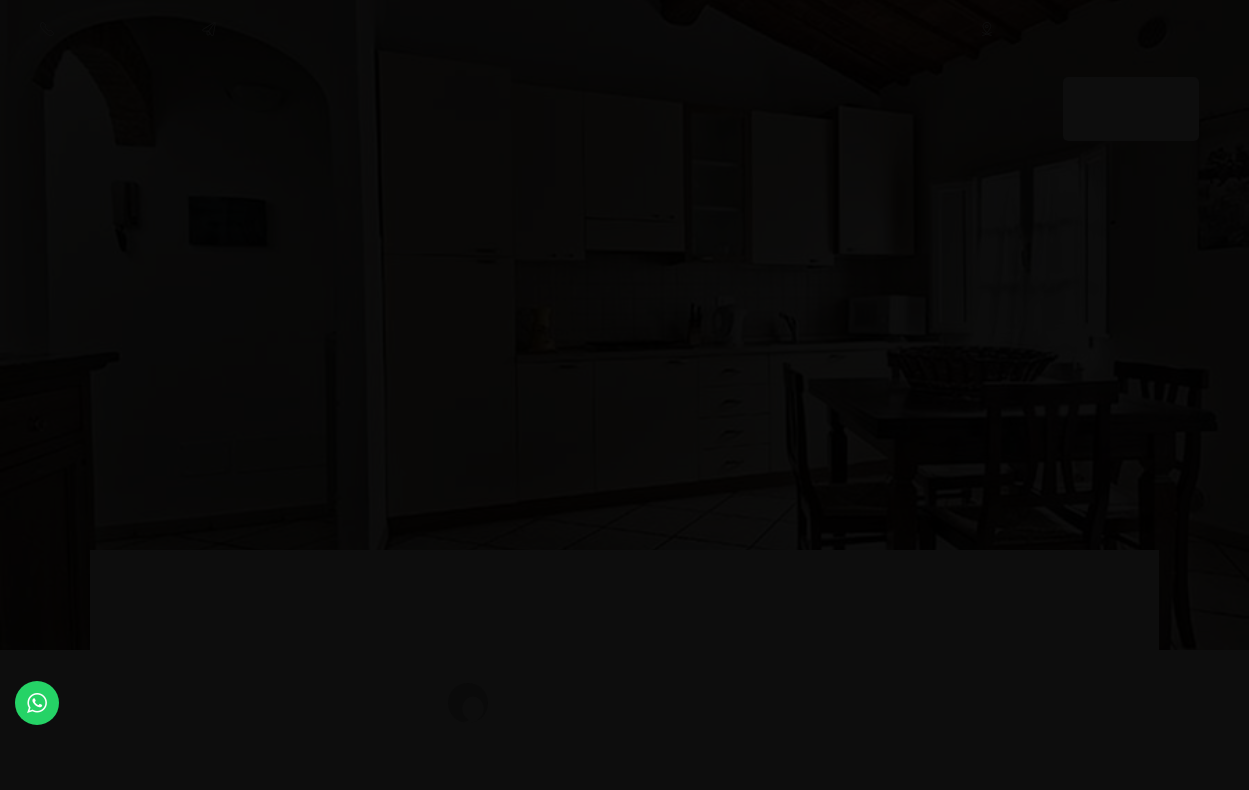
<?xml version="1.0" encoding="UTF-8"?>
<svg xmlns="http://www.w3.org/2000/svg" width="1249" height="790">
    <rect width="100%" height="100%" fill="#0D0D0D"/>
    <image x="0" y="0" width="1249" height="650" href="img_01.png"/>
    <rect x="90" y="550" width="1069" height="100" fill="#0D0D0D"/>
    <image x="448" y="683" width="40" height="40" href="img_02.png"/>
    <image x="40" y="22" width="14" height="14" href="img_03.png"/>
    <image x="202" y="22" width="14" height="14" href="img_04.png"/>
    <image x="982" y="22" width="10" height="14" href="img_05.png"/>
    <rect x="1063" y="77" width="136" height="64" rx="5" fill="#0D0D0D"/>
    <circle cx="37" cy="703" r="22" fill="#25D366"/>
    <image x="27" y="693" width="20" height="20" href="img_06.png"/>
</svg>
